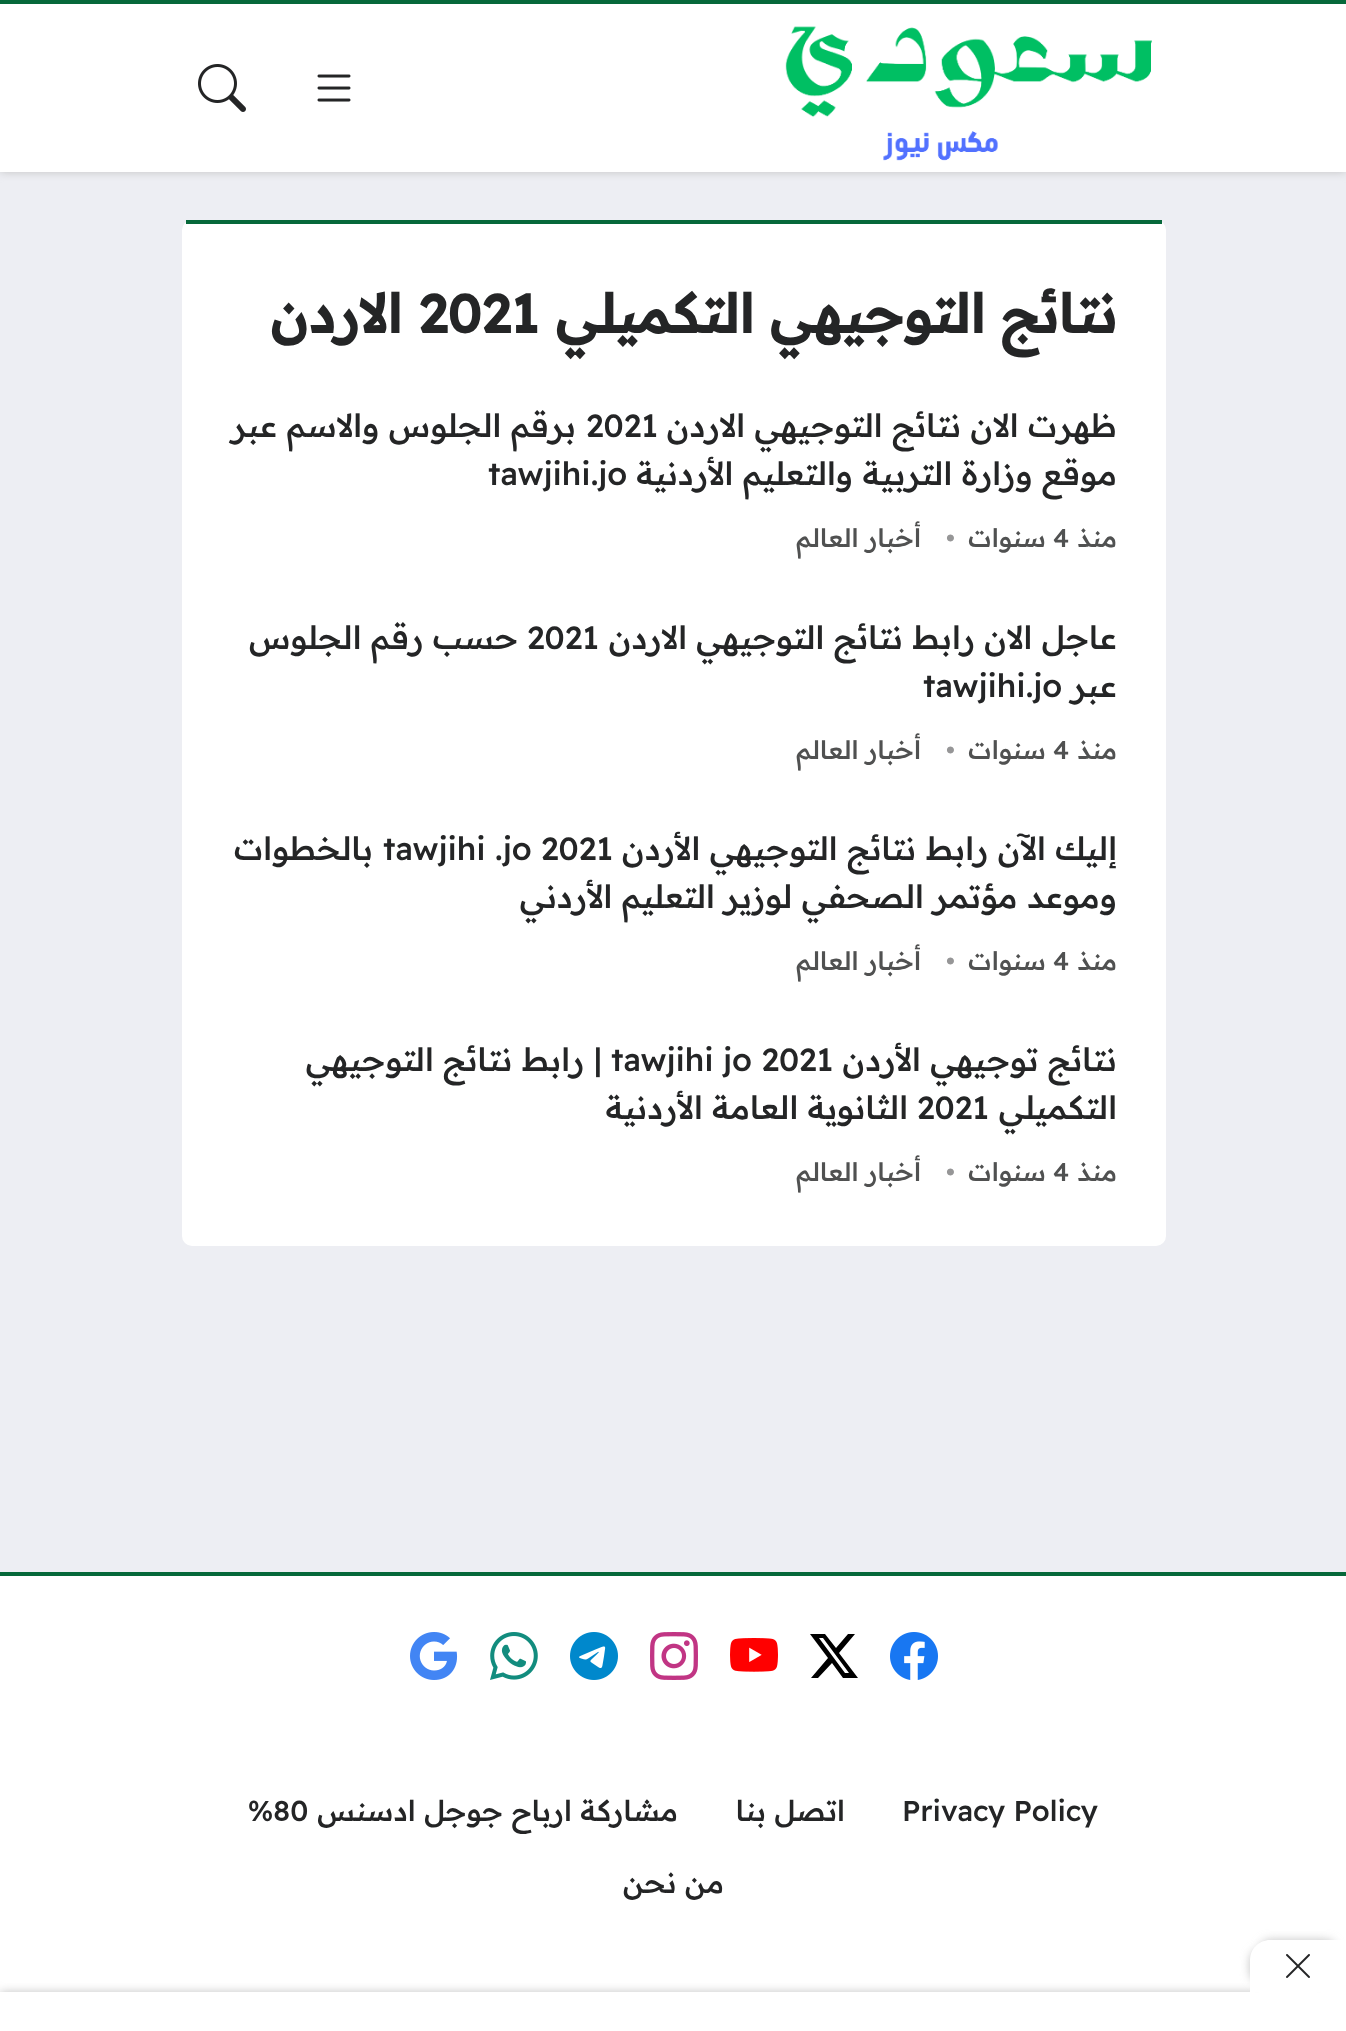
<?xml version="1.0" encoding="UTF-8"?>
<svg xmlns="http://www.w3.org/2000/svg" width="1346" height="2031">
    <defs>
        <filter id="blur1" x="-50%" y="-200%" width="200%" height="500%"><feGaussianBlur stdDeviation="5"/></filter>
    </defs>
    <rect width="100%" height="100%" fill="#EDEEF3"/>
    <rect x="0" y="0" width="1346" height="172" fill="#C3C3C3" filter="url(#blur1)"/>
    <rect x="0" y="0" width="1346" height="4" fill="#06683A"/>
    <rect x="0" y="4" width="1346" height="168" fill="#FFFFFF"/>
    <image x="785" y="26" width="367" height="135" href="img_01.png"/>
    <image x="317" y="74" width="34" height="28" href="img_02.png"/>
    <image x="198" y="64" width="48" height="48" href="img_03.png"/>
    <rect x="182" y="220" width="984" height="1026" rx="10" fill="#FFFFFF"/>
    <rect x="186" y="220" width="976" height="4" fill="#06683A"/>
    <text x="1117" y="333" font-family="Readex Pro" font-size="53.75" font-weight="700" direction="rtl" fill="#242526">نتائج التوجيهي التكميلي</text>
    <text x="418" y="333" font-family="Readex Pro" font-size="53.75" font-weight="700" fill="#242526">2021</text>
    <text x="402" y="333" font-family="Readex Pro" font-size="53.75" font-weight="700" direction="rtl" fill="#242526">الاردن</text>
    <text x="1117" y="437" font-family="Readex Pro" font-size="32" font-weight="500" direction="rtl" fill="#242526">ظهرت الان نتائج التوجيهي الاردن</text>
    <text x="586" y="437" font-family="Readex Pro" font-size="32" font-weight="500" fill="#242526">2021</text>
    <text x="576" y="437" font-family="Readex Pro" font-size="32" font-weight="500" direction="rtl" fill="#242526">برقم الجلوس والاسم عبر</text>
    <text x="1117" y="485" font-family="Readex Pro" font-size="32" font-weight="500" direction="rtl" fill="#242526">موقع وزارة التربية والتعليم الأردنية</text>
    <text x="488" y="485" font-family="Readex Pro" font-size="32" font-weight="500" fill="#242526">tawjihi.jo</text>
    <text x="1117" y="547" font-family="Readex Pro" font-size="25.5" font-weight="500" direction="rtl" fill="#505151">منذ</text>
    <text x="1053" y="547" font-family="Readex Pro" font-size="25.5" font-weight="500" fill="#505151">4</text>
    <text x="1046" y="547" font-family="Readex Pro" font-size="25.5" font-weight="500" direction="rtl" fill="#505151">سنوات</text>
    <text x="946" y="547" font-family="Readex Pro" font-size="25.5" font-weight="500" fill="#969697">•</text>
    <text x="921" y="547" font-family="Readex Pro" font-size="25.5" font-weight="500" direction="rtl" fill="#505151">أخبار العالم</text>
    <text x="1117" y="649" font-family="Readex Pro" font-size="32" font-weight="500" direction="rtl" fill="#242526">عاجل الان</text>
    <text x="975" y="649" font-family="Readex Pro" font-size="32" font-weight="500" direction="rtl" fill="#242526">رابط نتائج التوجيهي الاردن</text>
    <text x="527" y="649" font-family="Readex Pro" font-size="32" font-weight="500" fill="#242526">2021</text>
    <text x="518" y="649" font-family="Readex Pro" font-size="32" font-weight="500" direction="rtl" fill="#242526">حسب رقم الجلوس</text>
    <text x="1117" y="697" font-family="Readex Pro" font-size="32" font-weight="500" direction="rtl" fill="#242526">عبر</text>
    <text x="923" y="697" font-family="Readex Pro" font-size="32" font-weight="500" fill="#242526">tawjihi.jo</text>
    <text x="1117" y="759" font-family="Readex Pro" font-size="25.5" font-weight="500" direction="rtl" fill="#505151">منذ</text>
    <text x="1053" y="759" font-family="Readex Pro" font-size="25.5" font-weight="500" fill="#505151">4</text>
    <text x="1046" y="759" font-family="Readex Pro" font-size="25.5" font-weight="500" direction="rtl" fill="#505151">سنوات</text>
    <text x="946" y="759" font-family="Readex Pro" font-size="25.5" font-weight="500" fill="#969697">•</text>
    <text x="921" y="759" font-family="Readex Pro" font-size="25.5" font-weight="500" direction="rtl" fill="#505151">أخبار العالم</text>
    <text x="1117" y="860" font-family="Readex Pro" font-size="32" font-weight="500" direction="rtl" fill="#242526">إليك الآن رابط نتائج التوجيهي الأردن</text>
    <text x="383" y="860" font-family="Readex Pro" font-size="32" font-weight="500" fill="#242526">tawjihi .jo 2021</text>
    <text x="373" y="860" font-family="Readex Pro" font-size="32" font-weight="500" direction="rtl" fill="#242526">بالخطوات</text>
    <text x="1117" y="908" font-family="Readex Pro" font-size="32" font-weight="500" direction="rtl" fill="#242526">وموعد مؤتمر الصحفي لوزير التعليم الأردني</text>
    <text x="1117" y="970" font-family="Readex Pro" font-size="25.5" font-weight="500" direction="rtl" fill="#505151">منذ</text>
    <text x="1053" y="970" font-family="Readex Pro" font-size="25.5" font-weight="500" fill="#505151">4</text>
    <text x="1046" y="970" font-family="Readex Pro" font-size="25.5" font-weight="500" direction="rtl" fill="#505151">سنوات</text>
    <text x="946" y="970" font-family="Readex Pro" font-size="25.5" font-weight="500" fill="#969697">•</text>
    <text x="921" y="970" font-family="Readex Pro" font-size="25.5" font-weight="500" direction="rtl" fill="#505151">أخبار العالم</text>
    <text x="1117" y="1071" font-family="Readex Pro" font-size="32" font-weight="500" direction="rtl" fill="#242526">نتائج توجيهي الأردن</text>
    <text x="611" y="1071" font-family="Readex Pro" font-size="32" font-weight="500" fill="#242526">tawjihi jo 2021</text>
    <text x="602" y="1071" font-family="Readex Pro" font-size="32" font-weight="500" direction="rtl" fill="#242526">| رابط نتائج التوجيهي</text>
    <text x="1117" y="1119" font-family="Readex Pro" font-size="32" font-weight="500" direction="rtl" fill="#242526">التكميلي</text>
    <text x="917" y="1119" font-family="Readex Pro" font-size="32" font-weight="500" fill="#242526">2021</text>
    <text x="908" y="1119" font-family="Readex Pro" font-size="32" font-weight="500" direction="rtl" fill="#242526">الثانوية العامة الأردنية</text>
    <text x="1117" y="1181" font-family="Readex Pro" font-size="25.5" font-weight="500" direction="rtl" fill="#505151">منذ</text>
    <text x="1053" y="1181" font-family="Readex Pro" font-size="25.5" font-weight="500" fill="#505151">4</text>
    <text x="1046" y="1181" font-family="Readex Pro" font-size="25.5" font-weight="500" direction="rtl" fill="#505151">سنوات</text>
    <text x="946" y="1181" font-family="Readex Pro" font-size="25.5" font-weight="500" fill="#969697">•</text>
    <text x="921" y="1181" font-family="Readex Pro" font-size="25.5" font-weight="500" direction="rtl" fill="#505151">أخبار العالم</text>
    <rect x="0" y="1572" width="1346" height="4" fill="#06683A"/>
    <rect x="0" y="1576" width="1346" height="384" fill="#FFFFFF"/>
    <image x="890" y="1632" width="48" height="48" href="img_04.png"/>
    <path d="M 848 1634 H 855 L 839 1653 L 858 1678 H 843 L 832 1663 L 818 1678 H 811 L 828 1658 L 810 1634 H 825 L 836 1648 Z M 845 1673 H 849 L 823 1638 H 819 Z" fill="#000000"/>
    <image x="730" y="1638" width="48" height="34" href="img_05.png"/>
    <image x="650" y="1632" width="48" height="48" href="img_06.png"/>
    <image x="570" y="1632" width="48" height="48" href="img_07.png"/>
    <image x="490" y="1632" width="48" height="48" href="img_08.png"/>
    <image x="410" y="1632" width="48" height="48" href="img_09.png"/>
    <text x="902" y="1821" font-family="Readex Pro" font-size="28.75" font-weight="500" fill="#242526">Privacy Policy</text>
    <text x="845" y="1821" font-family="Readex Pro" font-size="28.75" font-weight="500" direction="rtl" fill="#242526">اتصل بنا</text>
    <text x="678" y="1821" font-family="Readex Pro" font-size="28.75" font-weight="500" direction="rtl" fill="#242526">مشاركة ارباح جوجل ادسنس</text>
    <text x="248" y="1821" font-family="Readex Pro" font-size="28.75" font-weight="500" fill="#242526">%80</text>
    <text x="724" y="1893" font-family="Readex Pro" font-size="28.75" font-weight="500" direction="rtl" fill="#242526">من نحن</text>
    <rect x="0" y="1960" width="1250" height="32" fill="#FFFFFF"/>
    <rect x="0" y="1992" width="1346" height="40" fill="#C3C3C3" filter="url(#blur1)"/>
    <rect x="0" y="1992" width="1346" height="39" fill="#FFFFFF"/>
    <rect x="1260" y="1940" width="76" height="32" rx="10" fill="#C3C3C3" filter="url(#blur1)"/>
    <rect x="1250" y="1950" width="76" height="32" rx="10" fill="#C3C3C3" filter="url(#blur1)"/>
    <path d="M 1270 1940 H 1346 V 1992 H 1250 V 1960 C 1250 1949 1259 1940 1270 1940 Z" fill="#FFFFFF"/>
    <image x="1286" y="1954" width="24" height="24" href="img_10.png"/>
</svg>
